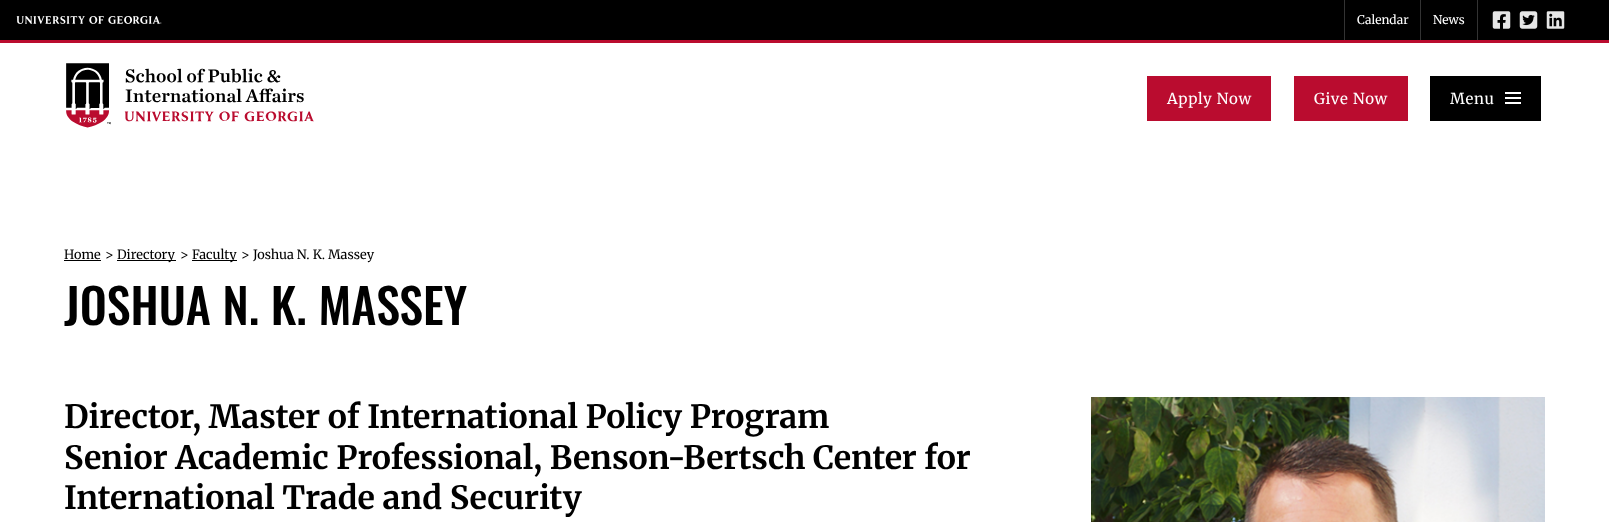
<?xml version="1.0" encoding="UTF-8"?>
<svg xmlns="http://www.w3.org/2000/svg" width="1609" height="522">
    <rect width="100%" height="100%" fill="#FFFFFF"/>
    <rect x="0" y="0" width="1609" height="40" fill="#000000"/>
    <rect x="0" y="40" width="1609" height="3" fill="#BA0C2F"/>
    <image x="16" y="16" width="146" height="8" href="img_01.png"/>
    <rect x="1420" y="0" width="1" height="40" fill="#333333"/>
    <rect x="1344" y="0" width="1" height="40" fill="#333333"/>
    <text x="1357" y="24" font-family="Merriweather" font-size="12" fill="#FFFFFF">Calendar</text>
    <rect x="1477" y="0" width="1" height="40" fill="#333333"/>
    <text x="1433" y="24" font-family="Merriweather" font-size="12" fill="#FFFFFF">News</text>
    <image x="1492" y="11" width="19" height="18" href="img_02.png"/>
    <image x="1519" y="11" width="19" height="18" href="img_03.png"/>
    <image x="1546" y="11" width="19" height="18" href="img_04.png"/>
    <image x="66" y="63" width="248" height="65" href="img_05.png"/>
    <rect x="1147" y="76" width="124" height="45" fill="#BA0C2F"/>
    <text x="1167" y="104" font-family="Merriweather" font-size="15" letter-spacing="0.75" fill="#FFFFFF">Apply Now</text>
    <rect x="1294" y="76" width="114" height="45" fill="#BA0C2F"/>
    <text x="1314" y="104" font-family="Merriweather" font-size="15" letter-spacing="0.75" fill="#FFFFFF">Give Now</text>
    <rect x="1430" y="76" width="111" height="45" fill="#000000"/>
    <text x="1450" y="104" font-family="Merriweather" font-size="15" letter-spacing="0.75" fill="#FFFFFF">Menu</text>
    <rect x="1505" y="92" width="16" height="2" fill="#FFFFFF"/>
    <rect x="1505" y="97" width="16" height="2" fill="#FFFFFF"/>
    <rect x="1505" y="102" width="16" height="2" fill="#FFFFFF"/>
    <text x="64" y="259" font-family="Merriweather" font-size="12.75" fill="#000000">Home</text>
    <rect x="64" y="260" width="37" height="1" fill="#000000"/>
    <text x="105" y="259" font-family="Merriweather" font-size="12.75" fill="#000000">&gt;</text>
    <rect x="117" y="260" width="59" height="1" fill="#000000"/>
    <text x="117" y="259" font-family="Merriweather" font-size="12.75" fill="#000000">Directory</text>
    <text x="180" y="259" font-family="Merriweather" font-size="12.75" fill="#000000">&gt;</text>
    <rect x="192" y="260" width="45" height="1" fill="#000000"/>
    <text x="192" y="259" font-family="Merriweather" font-size="12.75" fill="#000000">Faculty</text>
    <text x="241" y="259" font-family="Merriweather" font-size="12.75" fill="#000000">&gt;</text>
    <text x="253" y="259" font-family="Merriweather" font-size="12.75" fill="#000000">Joshua N. K. Massey</text>
    <text x="64" y="325" font-family="Oswald" font-size="48.1" font-weight="500" fill="#000000">JOSHUA N. K. MASSEY</text>
    <text font-family="Merriweather" font-size="32.1" font-weight="700" fill="#000000">
        <tspan x="64" y="428">Director, Master of International Policy Program</tspan>
        <tspan x="64" y="469">Senior Academic Professional, Benson-Bertsch Center for</tspan>
        <tspan x="64" y="509">International Trade and Security</tspan>
    </text>
    <image x="1091" y="397" width="454" height="125" href="img_06.png"/>
</svg>
